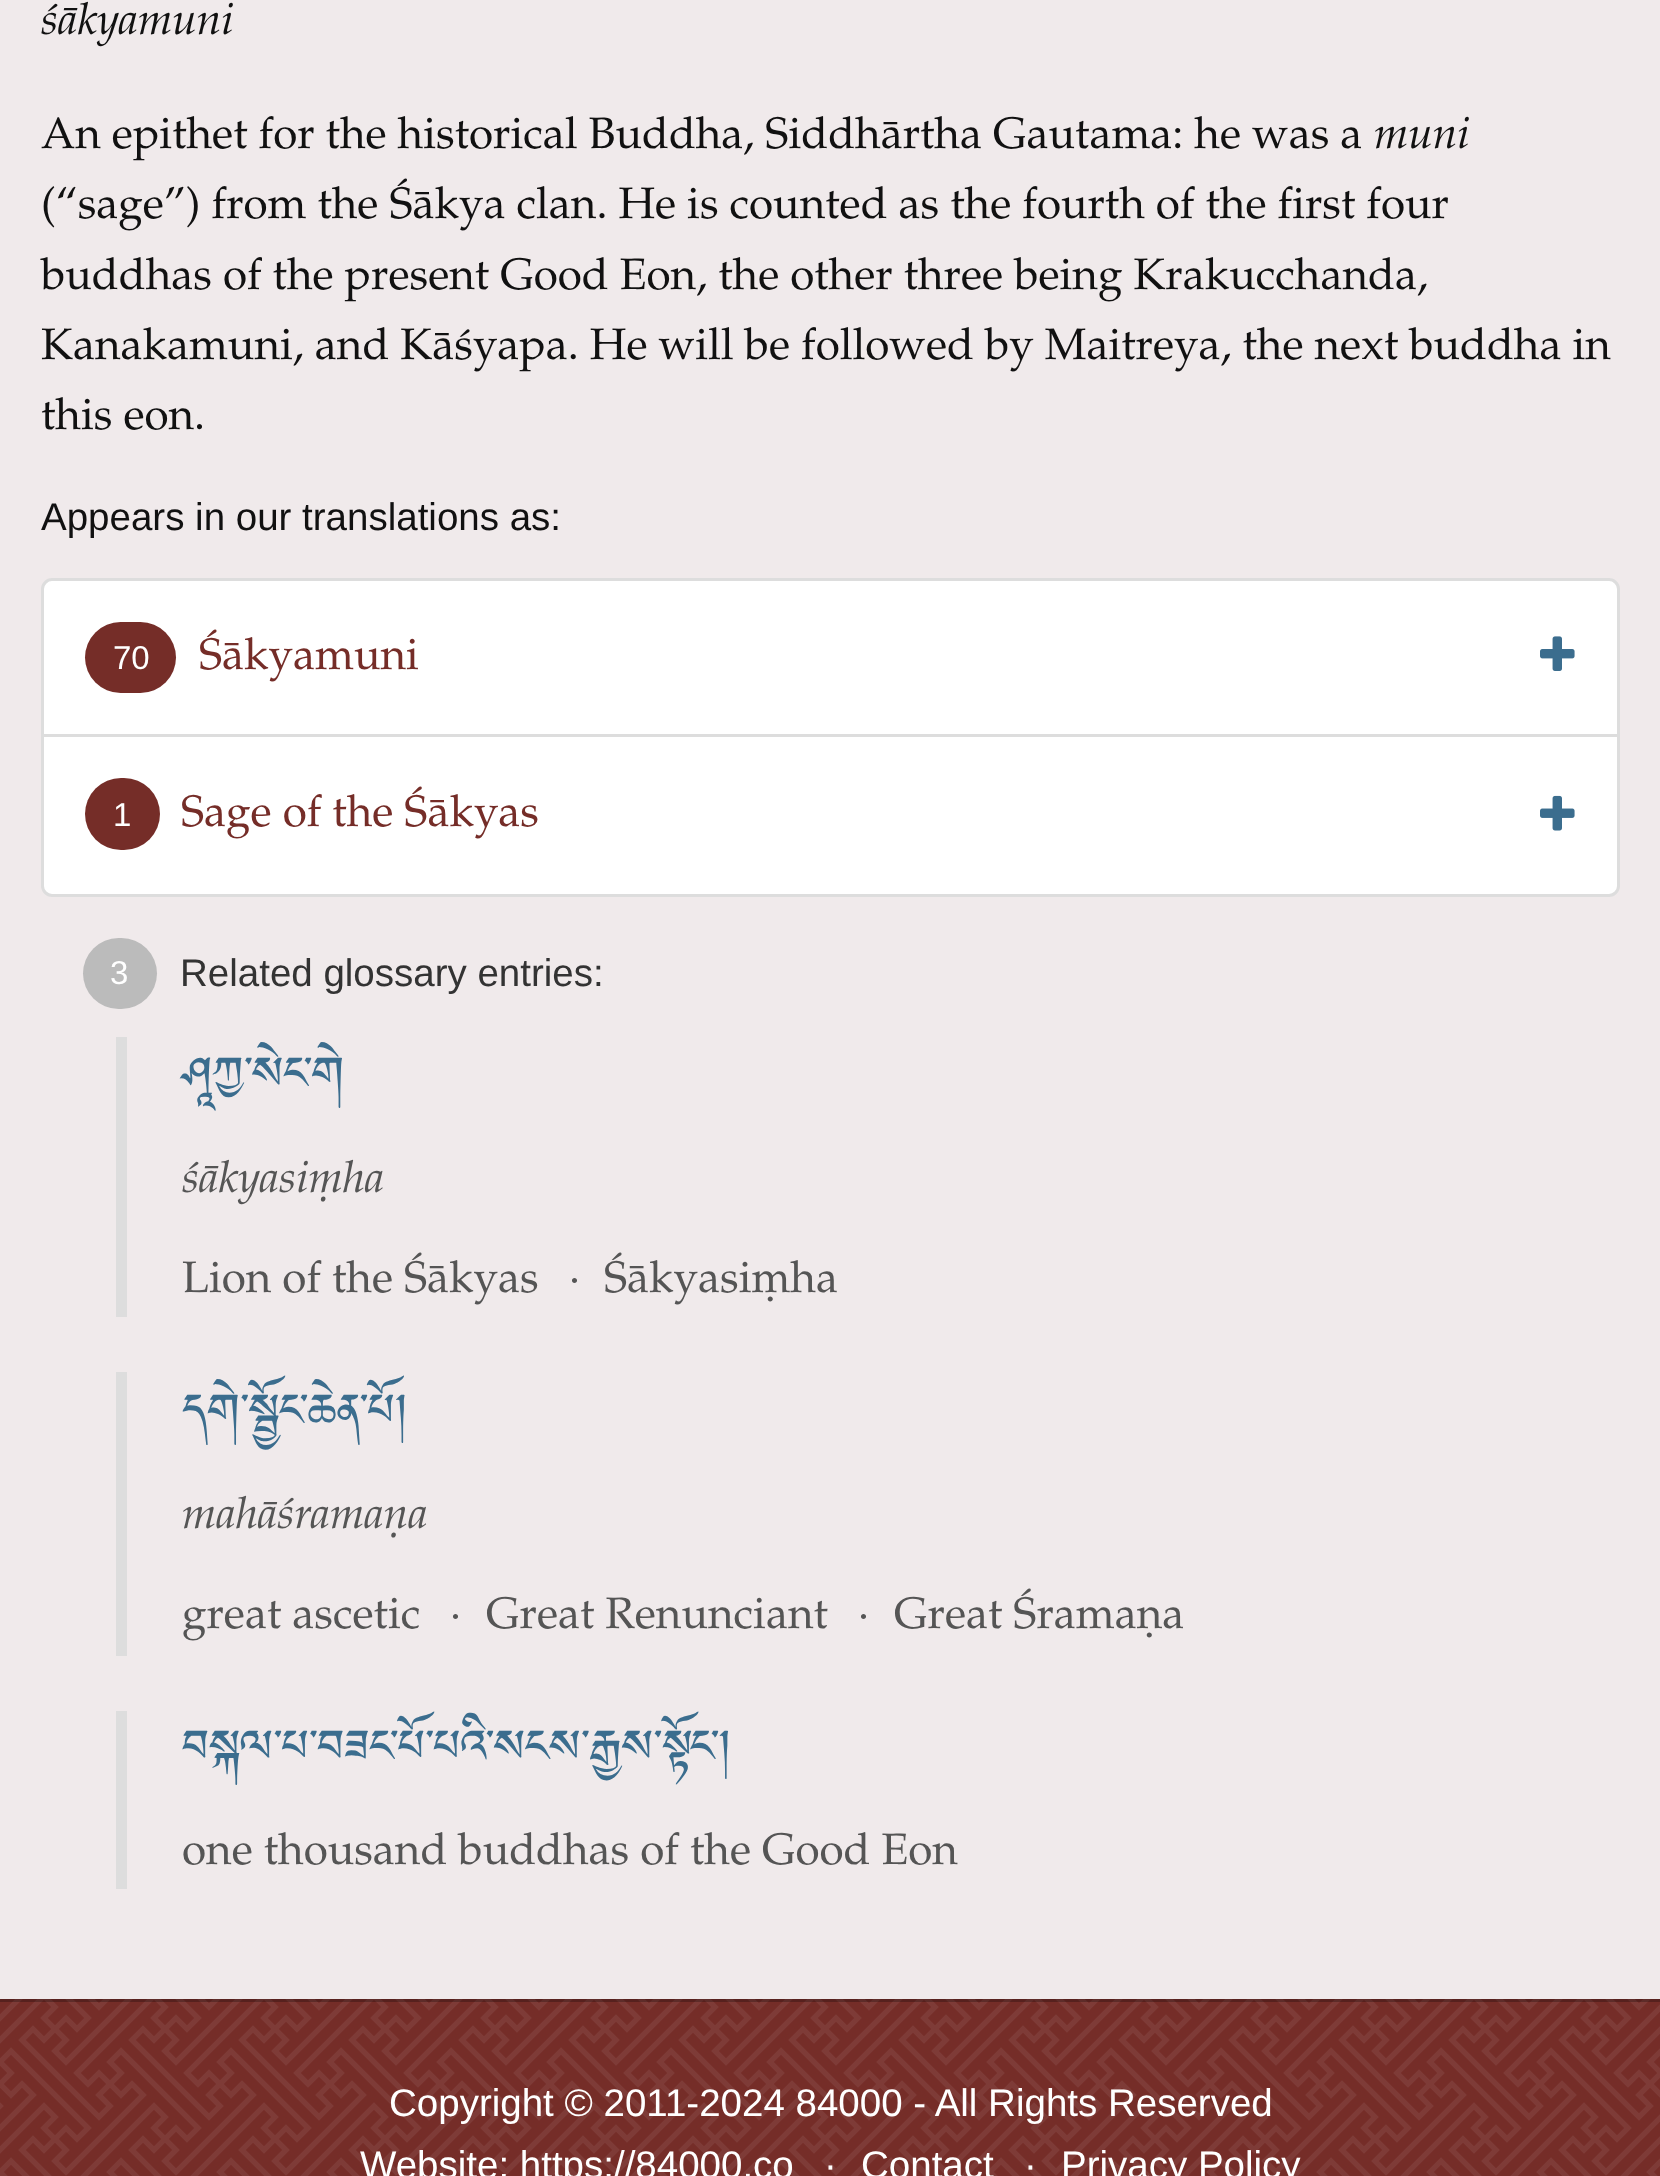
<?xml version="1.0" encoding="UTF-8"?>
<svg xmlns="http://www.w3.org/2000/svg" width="1660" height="2176">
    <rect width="100%" height="100%" fill="#752D28"/>
    <image x="0" y="1999" width="1660" height="177" href="img_01.png"/>
    <rect x="0" y="0" width="1660" height="1999" fill="#F0EAEB"/>
    <text x="41" y="34" font-family="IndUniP" font-size="44" font-style="italic" fill="#111111">śākyamuni</text>
    <text x="41" y="148" font-family="'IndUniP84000'" font-size="44" fill="#111111">An epithet for the historical Buddha, Siddhārtha Gautama: he was a</text>
    <text x="1374" y="148" font-family="IndUniP" font-size="44" font-style="italic" fill="#111111">muni</text>
    <text font-family="'IndUniP84000'" font-size="44" fill="#111111">
        <tspan x="41" y="218">(“sage”) from the Śākya clan. He is counted as the fourth of the first four</tspan>
        <tspan x="41" y="289">buddhas of the present Good Eon, the other three being Krakucchanda,</tspan>
        <tspan x="41" y="359">Kanakamuni, and Kāśyapa. He will be followed by Maitreya, the next buddha in</tspan>
        <tspan x="41" y="429">this eon.</tspan>
    </text>
    <text x="41" y="530" font-family="Liberation Sans" font-size="38.5" fill="#111111">Appears in our translations as:</text>
    <path d="M 52 579.5 H 1609 C 1614 579.5 1618.5 584 1618.5 589 V 735.5 H 42.5 V 589 C 42.5 584 47 579.5 52 579.5 Z" fill="#FFFFFF" stroke="#DDDDDD" stroke-width="3"/>
    <rect x="85" y="622" width="91" height="71" rx="35.5" fill="#752D28"/>
    <text x="113" y="669" font-family="Liberation Sans" font-size="33" fill="#FFFFFF">70</text>
    <text x="199" y="669" font-family="'IndUniP84000'" font-size="44" fill="#752D28">Śākyamuni</text>
    <image x="1540" y="636" width="35" height="35" href="img_02.png"/>
    <path d="M 42.5 735.5 H 1618.5 V 886 C 1618.5 891 1614 895.5 1609 895.5 H 52 C 47 895.5 42.5 891 42.5 886 Z" fill="#FFFFFF" stroke="#DDDDDD" stroke-width="3"/>
    <rect x="85" y="778" width="75" height="72" rx="36" fill="#752D28"/>
    <text x="113" y="826" font-family="Liberation Sans" font-size="33" fill="#FFFFFF">1</text>
    <text x="181" y="826" font-family="'IndUniP84000'" font-size="44" fill="#752D28">Sage of the Śākyas</text>
    <image x="1540" y="795" width="35" height="36" href="img_03.png"/>
    <rect x="83" y="938" width="74" height="71" rx="35.5" fill="#BBBBBB"/>
    <text x="110" y="984" font-family="Liberation Sans" font-size="33" fill="#FFFFFF">3</text>
    <text x="180" y="986" font-family="Liberation Sans" font-size="38.5" fill="#333333">Related glossary entries:</text>
    <rect x="116" y="1037" width="11" height="280" fill="#DDDDDD"/>
    <text x="182" y="1100" font-family="Jomolhari" font-size="57.25" fill="#3B6D8E">ཤཱཀྱ་སེང་གེ</text>
    <text x="182" y="1192" font-family="IndUniP" font-size="44" font-style="italic" fill="#555555">śākyasiṃha</text>
    <text x="182" y="1292" font-family="'IndUniP84000'" font-size="44" fill="#555555">Lion of the Śākyas</text>
    <text x="569" y="1292" font-family="'IndUniP84000'" font-size="44" fill="#555555">·</text>
    <text x="604" y="1292" font-family="'IndUniP84000'" font-size="44" fill="#555555">Śākyasiṃha</text>
    <rect x="116" y="1372" width="11" height="284" fill="#DDDDDD"/>
    <text x="182" y="1437" font-family="Jomolhari" font-size="57.25" fill="#3B6D8E">དགེ་སྦྱོང་ཆེན་པོ།</text>
    <text x="182" y="1528" font-family="IndUniP" font-size="44" font-style="italic" fill="#555555">mahāśramaṇa</text>
    <text x="182" y="1628" font-family="'IndUniP84000'" font-size="44" fill="#555555">great ascetic</text>
    <text x="450" y="1628" font-family="'IndUniP84000'" font-size="44" fill="#555555">·</text>
    <text x="486" y="1628" font-family="'IndUniP84000'" font-size="44" fill="#555555">Great Renunciant</text>
    <text x="858" y="1628" font-family="'IndUniP84000'" font-size="44" fill="#555555">·</text>
    <text x="894" y="1628" font-family="'IndUniP84000'" font-size="44" fill="#555555">Great Śramaṇa</text>
    <rect x="116" y="1711" width="11" height="178" fill="#DDDDDD"/>
    <text x="182" y="1773" font-family="Jomolhari" font-size="57.25" fill="#3B6D8E">བསྐལ་པ་བཟང་པོ་པའི་སངས་རྒྱས་སྟོང་།</text>
    <text x="182" y="1864" font-family="'IndUniP84000'" font-size="44" fill="#555555">one thousand buddhas of the Good Eon</text>
    <rect x="0" y="1999" width="1660" height="3" fill="#000000" fill-opacity="0.25"/>
    <text x="389" y="2116" font-family="Liberation Sans" font-size="38.5" fill="#FFFFFF">Copyright © 2011-2024 84000 - All Rights Reserved</text>
    <text x="360" y="2178" font-family="Liberation Sans" font-size="38.5" fill="#FFFFFF">Website: https://84000.co</text>
    <text x="824" y="2178" font-family="Liberation Sans" font-size="38.5" fill="#FFFFFF">·</text>
    <text x="861" y="2178" font-family="Liberation Sans" font-size="38.5" fill="#FFFFFF">Contact</text>
    <text x="1024" y="2178" font-family="Liberation Sans" font-size="38.5" fill="#FFFFFF">·</text>
    <text x="1061" y="2178" font-family="Liberation Sans" font-size="38.5" fill="#FFFFFF">Privacy Policy</text>
</svg>
